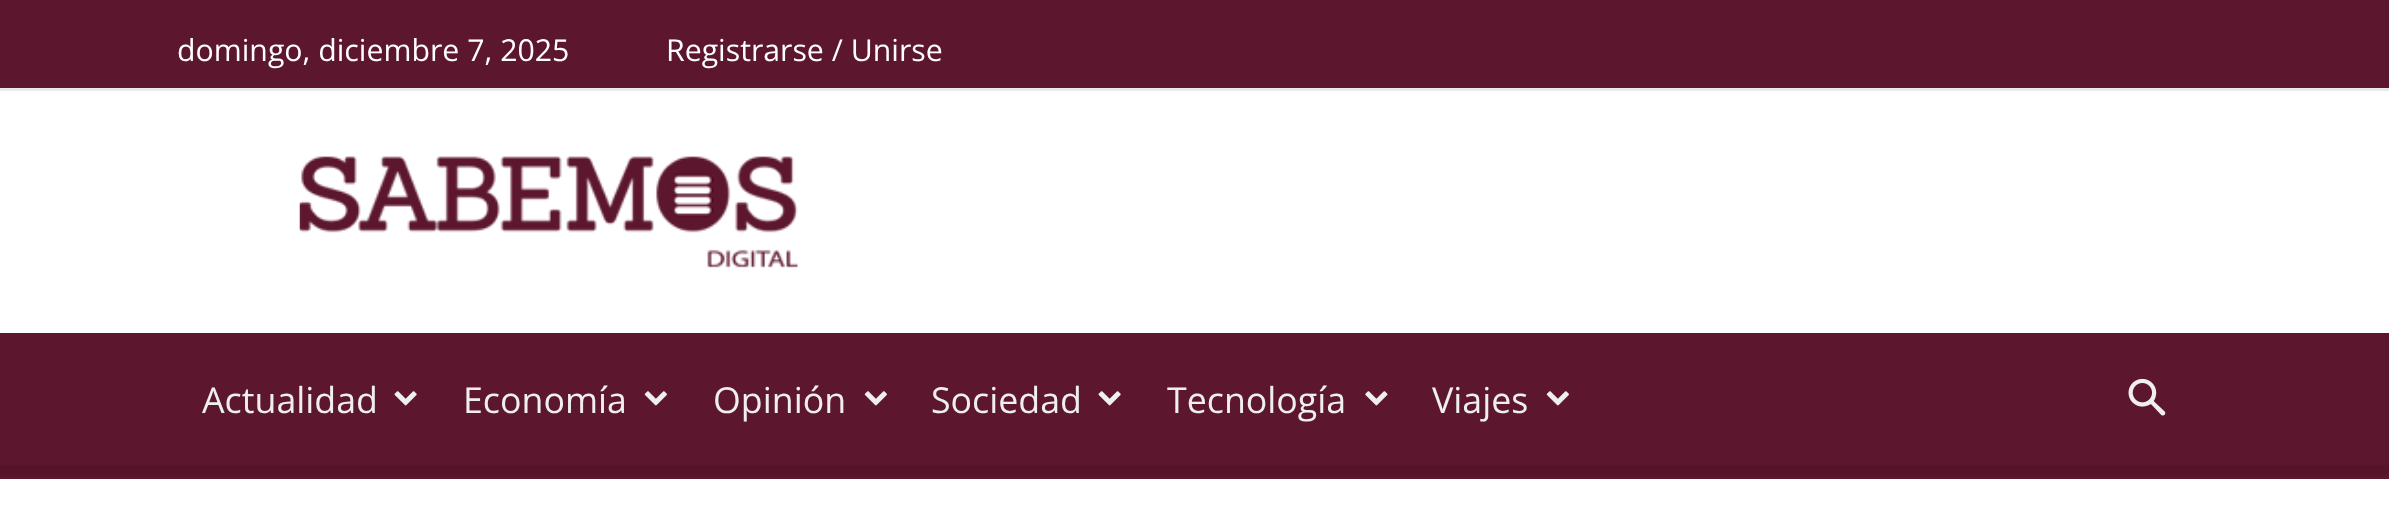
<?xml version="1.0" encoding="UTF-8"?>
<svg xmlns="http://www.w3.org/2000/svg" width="2389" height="532">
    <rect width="100%" height="100%" fill="#FFFFFF"/>
    <rect x="0" y="0" width="2389" height="88" fill="#5C162D"/>
    <rect x="0" y="88" width="2389" height="3" fill="#E9E9E9"/>
    <text x="177" y="61" font-family="Open Sans" font-size="30.25" fill="#FFFFFF">domingo, diciembre 7, 2025</text>
    <text x="666" y="61" font-family="Open Sans" font-size="30.25" fill="#FFFFFF">Registrarse / Unirse</text>
    <image x="299" y="156" width="499" height="112" href="img_01.png"/>
    <rect x="0" y="333" width="2389" height="146" fill="#5C162D"/>
    <text x="202" y="413" font-family="Open Sans" font-size="35.75" fill="#EFEFEF">Actualidad</text>
    <image x="394" y="391" width="23" height="15" href="img_02.png"/>
    <text x="463" y="413" font-family="Open Sans" font-size="35.75" fill="#EFEFEF">Economía</text>
    <image x="644" y="391" width="23" height="15" href="img_03.png"/>
    <text x="713" y="413" font-family="Open Sans" font-size="35.75" fill="#EFEFEF">Opinión</text>
    <image x="864" y="391" width="23" height="15" href="img_03.png"/>
    <text x="931" y="413" font-family="Open Sans" font-size="35.75" fill="#EFEFEF">Sociedad</text>
    <image x="1098" y="391" width="23" height="15" href="img_02.png"/>
    <text x="1167" y="413" font-family="Open Sans" font-size="35.75" fill="#EFEFEF">Tecnología</text>
    <image x="1365" y="391" width="23" height="15" href="img_04.png"/>
    <text x="1432" y="413" font-family="Open Sans" font-size="35.75" fill="#EFEFEF">Viajes</text>
    <image x="1546" y="391" width="23" height="15" href="img_03.png"/>
    <image x="2128" y="378" width="38" height="38" href="img_05.png"/>
    <image x="0" y="465" width="2389" height="11" href="img_06.png"/>
</svg>
